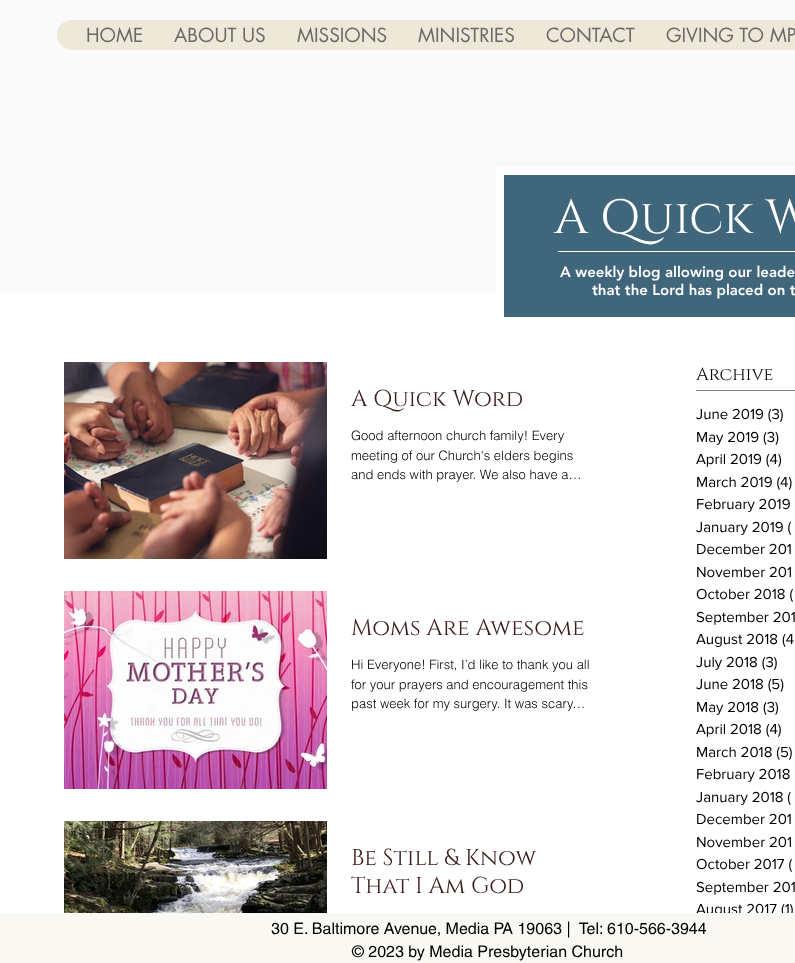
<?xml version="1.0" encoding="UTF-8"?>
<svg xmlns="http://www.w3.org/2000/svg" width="795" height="963">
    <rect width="100%" height="100%" fill="#FFFFFF"/>
    <rect x="0" y="0" width="795" height="292" fill="#FAFAFA"/>
    <rect x="57" y="20" width="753" height="30" rx="15" fill="#EEE8D8"/>
    <text x="86" y="42" font-family="futura" font-size="19" fill="#696969">HOME</text>
    <text x="174" y="42" font-family="futura" font-size="19" fill="#696969">ABOUT US</text>
    <text x="297" y="42" font-family="futura" font-size="19" fill="#696969">MISSIONS</text>
    <text x="418" y="42" font-family="futura" font-size="19" fill="#696969">MINISTRIES</text>
    <text x="546" y="42" font-family="futura" font-size="19" fill="#696969">CONTACT</text>
    <text x="666" y="42" font-family="futura" font-size="19" fill="#696969">GIVING TO MP</text>
    <rect x="500" y="171" width="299" height="150" fill="#40667C" stroke="#FFFFFF" stroke-width="8"/>
    <text x="554" y="233" font-family="Cinzel" font-size="48" fill="#FFFFFF">A Quick W</text>
    <rect x="558" y="251" width="237" height="1" fill="#FFFFFF"/>
    <text x="560" y="277" font-family="'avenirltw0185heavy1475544'" font-size="15" font-weight="900" fill="#FFFFFF">A weekly blog allowing our leade</text>
    <text x="592" y="295" font-family="'avenirltw0185heavy1475544'" font-size="15" font-weight="900" fill="#FFFFFF">that the Lord has placed on t</text>
    <text x="696" y="380" font-family="Cinzel" font-size="18" fill="#000000">Archive</text>
    <image x="64" y="362" width="263" height="197" href="img_01.png"/>
    <text x="351" y="406" font-family="Cinzel" font-size="23" fill="#381D1B">A Quick Word</text>
    <text font-family="helvetica" font-size="13" font-weight="300" fill="#000000">
        <tspan x="351" y="440">Good afternoon church family! Every</tspan>
        <tspan x="351" y="460">meeting of our Church's elders begins</tspan>
        <tspan x="351" y="479">and ends with prayer. We also have a…</tspan>
    </text>
    <image x="64" y="591" width="263" height="198" href="img_02.png"/>
    <text x="351" y="635" font-family="Cinzel" font-size="23" fill="#381D1B">Moms Are Awesome</text>
    <text font-family="helvetica" font-size="13" font-weight="300" fill="#000000">
        <tspan x="351" y="669">Hi Everyone! First, I’d like to thank you all</tspan>
        <tspan x="351" y="689">for your prayers and encouragement this</tspan>
        <tspan x="351" y="708">past week for my surgery. It was scary…</tspan>
    </text>
    <image x="64" y="821" width="263" height="92" href="img_03.png"/>
    <text font-family="Cinzel" font-size="23" fill="#381D1B">
        <tspan x="351" y="865">Be Still &amp; Know</tspan>
        <tspan x="351" y="893">That I Am God</tspan>
    </text>
    <rect x="696" y="390" width="99" height="1" fill="#808080"/>
    <text font-family="'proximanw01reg'" font-size="15" fill="#000000">
        <tspan x="696" y="419">June 2019 (3)</tspan>
        <tspan x="696" y="442">May 2019 (3)</tspan>
        <tspan x="696" y="464">April 2019 (4)</tspan>
        <tspan x="696" y="487">March 2019 (4)</tspan>
        <tspan x="696" y="509">February 2019</tspan>
        <tspan x="696" y="532">January 2019 (</tspan>
        <tspan x="696" y="554">December 201</tspan>
        <tspan x="696" y="577">November 201</tspan>
        <tspan x="696" y="599">October 2018 (</tspan>
        <tspan x="696" y="622">September 201</tspan>
        <tspan x="696" y="644">August 2018 (4</tspan>
        <tspan x="696" y="667">July 2018 (3)</tspan>
        <tspan x="696" y="689">June 2018 (5)</tspan>
        <tspan x="696" y="712">May 2018 (3)</tspan>
        <tspan x="696" y="734">April 2018 (4)</tspan>
        <tspan x="696" y="757">March 2018 (5)</tspan>
        <tspan x="696" y="779">February 2018</tspan>
        <tspan x="696" y="802">January 2018 (</tspan>
        <tspan x="696" y="824">December 201</tspan>
        <tspan x="696" y="847">November 201</tspan>
        <tspan x="696" y="869">October 2017 (</tspan>
        <tspan x="696" y="892">September 201</tspan>
        <tspan x="696" y="914">August 2017 (1)</tspan>
    </text>
    <rect x="0" y="913" width="795" height="50" fill="#FAF8F2"/>
    <text x="271" y="934" font-family="helvetica" font-size="16" fill="#000000" xml:space="preserve">30 E. Baltimore Avenue, Media PA 19063 |  Tel: 610-566-3944</text>
    <text x="352" y="957" font-family="helvetica" font-size="16" fill="#000000">© 2023 by Media Presbyterian Church</text>
</svg>
